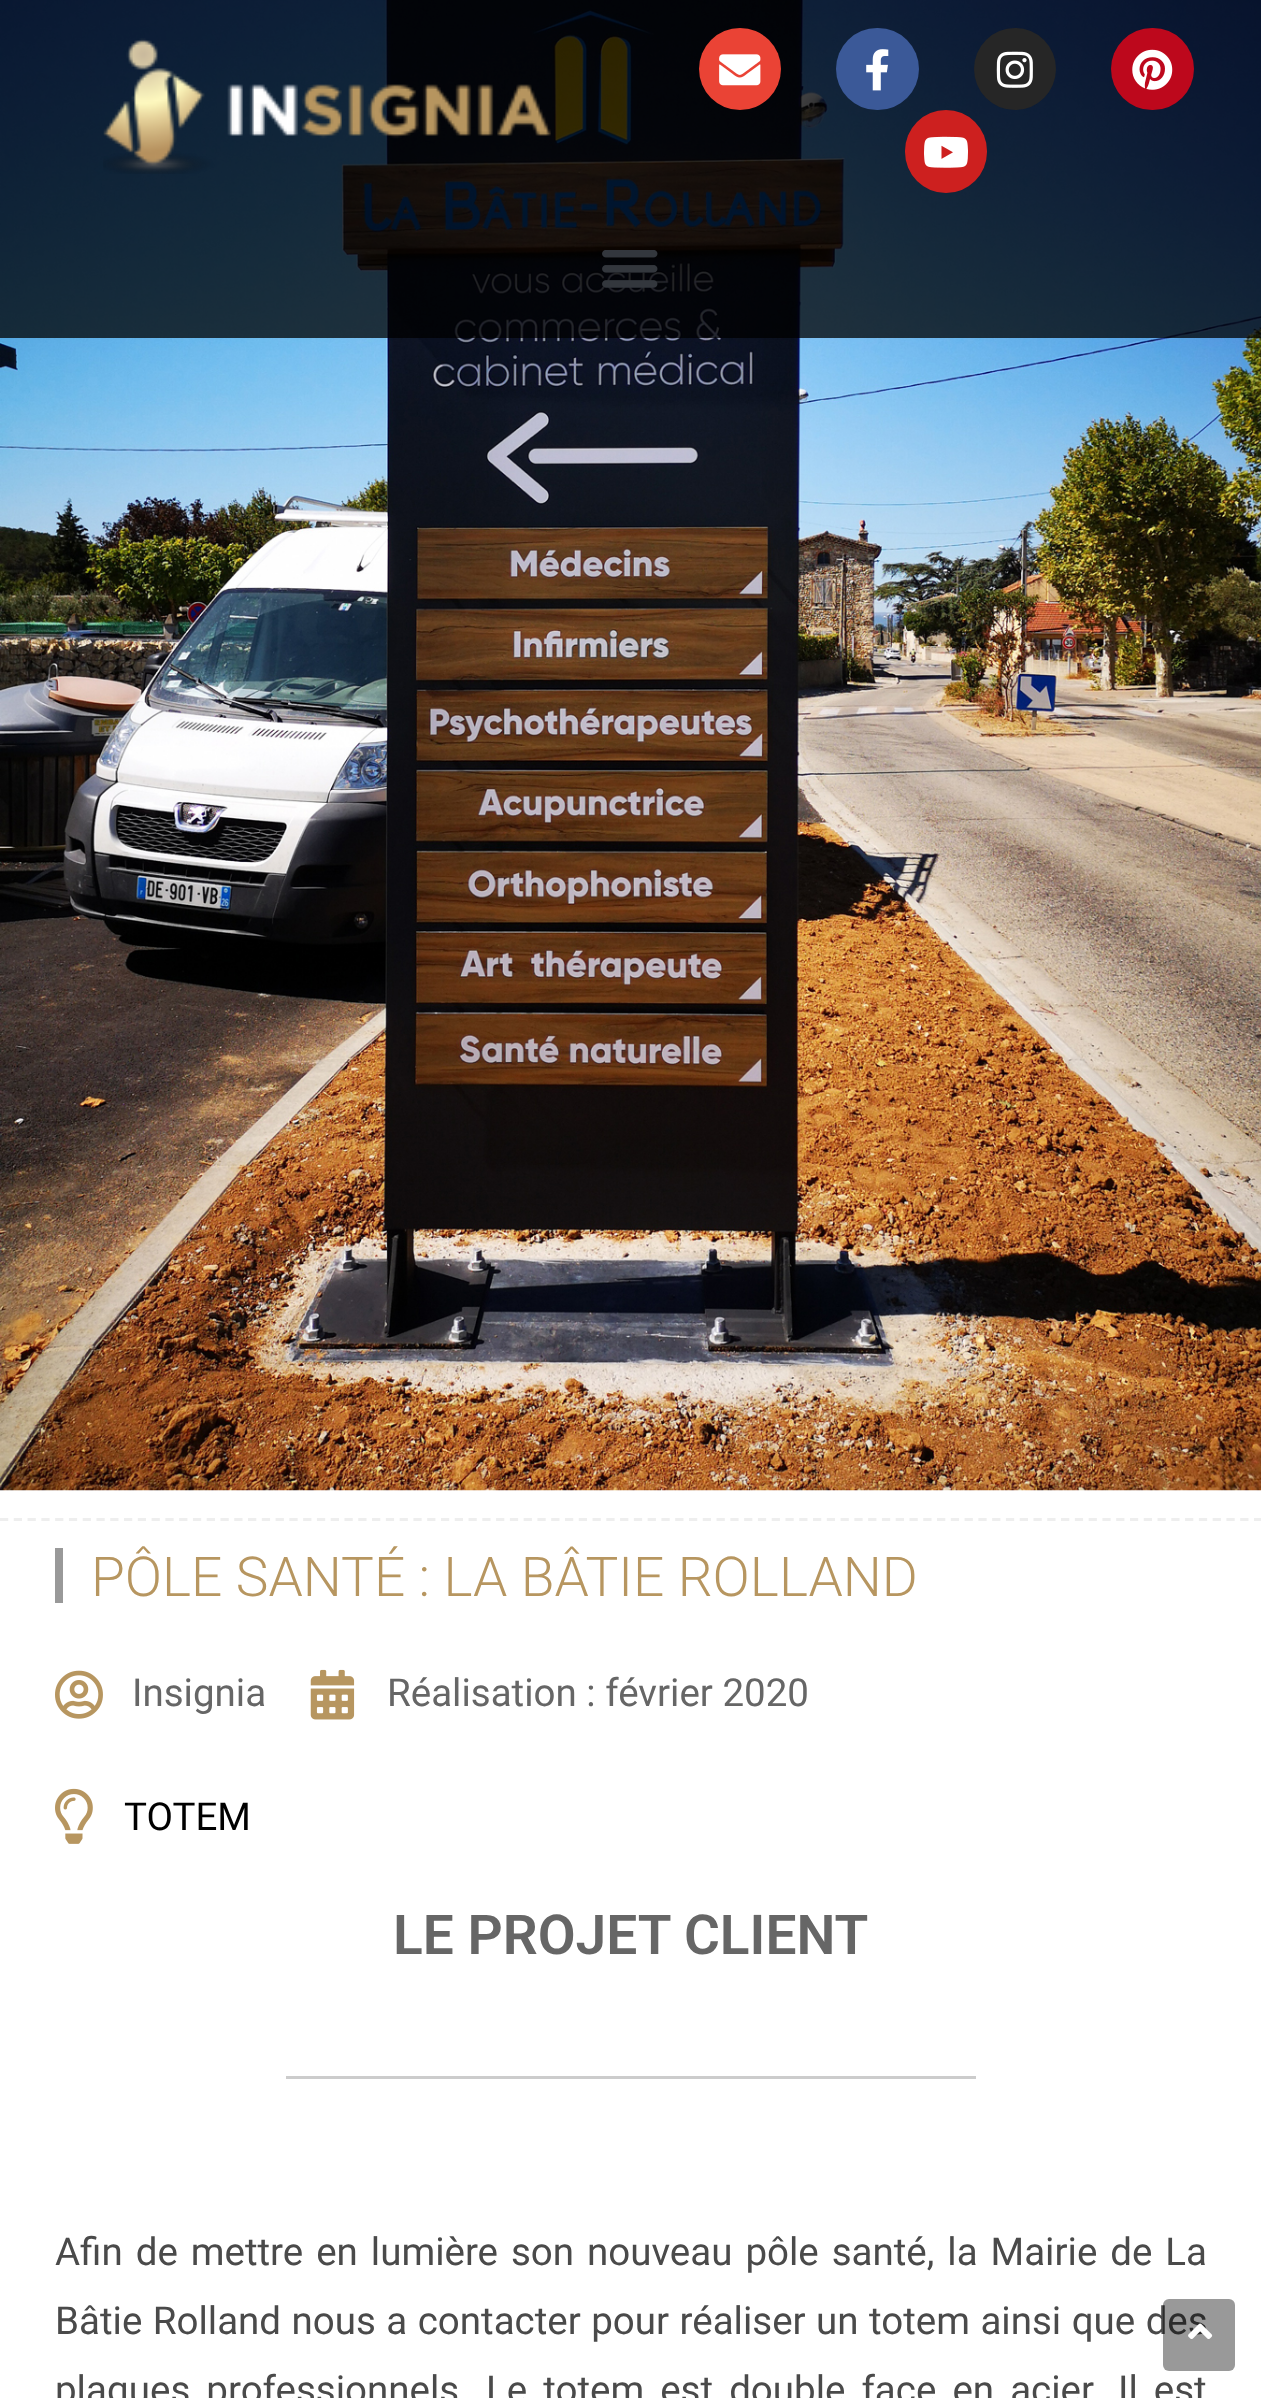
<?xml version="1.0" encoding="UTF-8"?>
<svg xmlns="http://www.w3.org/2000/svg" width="1261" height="2398">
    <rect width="100%" height="100%" fill="#FFFFFF"/>
    <image x="0" y="0" width="1261" height="1491" href="img_08.png"/>
    <rect x="0" y="0" width="1261" height="338" fill="#000000" fill-opacity="0.75"/>
    <image x="103" y="38" width="448" height="136" href="img_01.png"/>
    <circle cx="740" cy="69" r="41" fill="#EA4335"/>
    <image x="719" y="54" width="42" height="32" href="img_02.png"/>
    <rect x="836" y="28" width="83" height="82" rx="41" fill="#3B5998"/>
    <image x="866" y="49" width="23" height="42" href="img_03.png"/>
    <circle cx="1015" cy="69" r="41" fill="#262626"/>
    <image x="996" y="51" width="37" height="37" href="img_04.png"/>
    <rect x="1111" y="28" width="83" height="82" rx="41" fill="#BD081C"/>
    <image x="1132" y="49" width="41" height="41" href="img_05.png"/>
    <rect x="905" y="110" width="82" height="83" rx="41" fill="#CD201F"/>
    <image x="924" y="136" width="44" height="32" href="img_06.png"/>
    <image x="602" y="250" width="56" height="38" href="img_07.png"/>
    <path d="M 0 1519.5 H 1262" fill="none" stroke="#EEEEEE" stroke-width="2.8" stroke-dasharray="8.25 5.53"/>
    <rect x="55" y="1548" width="8" height="55" fill="#999999"/>
    <text x="91" y="1596" font-family="Roboto" font-size="55" font-weight="300" fill="#B79660">PÔLE SANTÉ : LA BÂTIE ROLLAND</text>
    <image x="55" y="1670" width="48" height="49" href="img_09.png"/>
    <text x="132" y="1706" font-family="Roboto" font-size="38.5" fill="#666666">Insignia</text>
    <image x="310" y="1669" width="45" height="51" href="img_10.png"/>
    <text x="387" y="1706" font-family="Roboto" font-size="38.5" fill="#666666">Réalisation : février 2020</text>
    <image x="55" y="1788" width="38" height="56" href="img_11.png"/>
    <text x="124" y="1830" font-family="Roboto" font-size="38.5" fill="#000000">TOTEM</text>
    <text x="393" y="1954" font-family="Roboto" font-size="55" font-weight="600" fill="#666666">LE PROJET CLIENT</text>
    <rect x="286" y="2076" width="690" height="3" fill="#CCCCCC"/>
    <text font-family="Roboto" font-size="38.5" fill="#4A4A4A">
        <tspan x="55" y="2265" word-spacing="3.4">Afin de mettre en lumière son nouveau pôle santé, la Mairie de La</tspan>
        <tspan x="55" y="2334" word-spacing="0.9">Bâtie Rolland nous a contacter pour réaliser un totem ainsi que des</tspan>
        <tspan x="55" y="2403" word-spacing="6.5">plaques professionnels</tspan>
    </text>
    <text x="486" y="2403" word-spacing="6.5" font-family="Roboto" font-size="38.5" fill="#4A4A4A">Le totem est double face en acier. Il est</text>
    <rect x="1163" y="2299" width="72" height="72" rx="6" fill="#000000" fill-opacity="0.4"/>
    <image x="1188" y="2323" width="25" height="16" href="img_12.png"/>
</svg>
